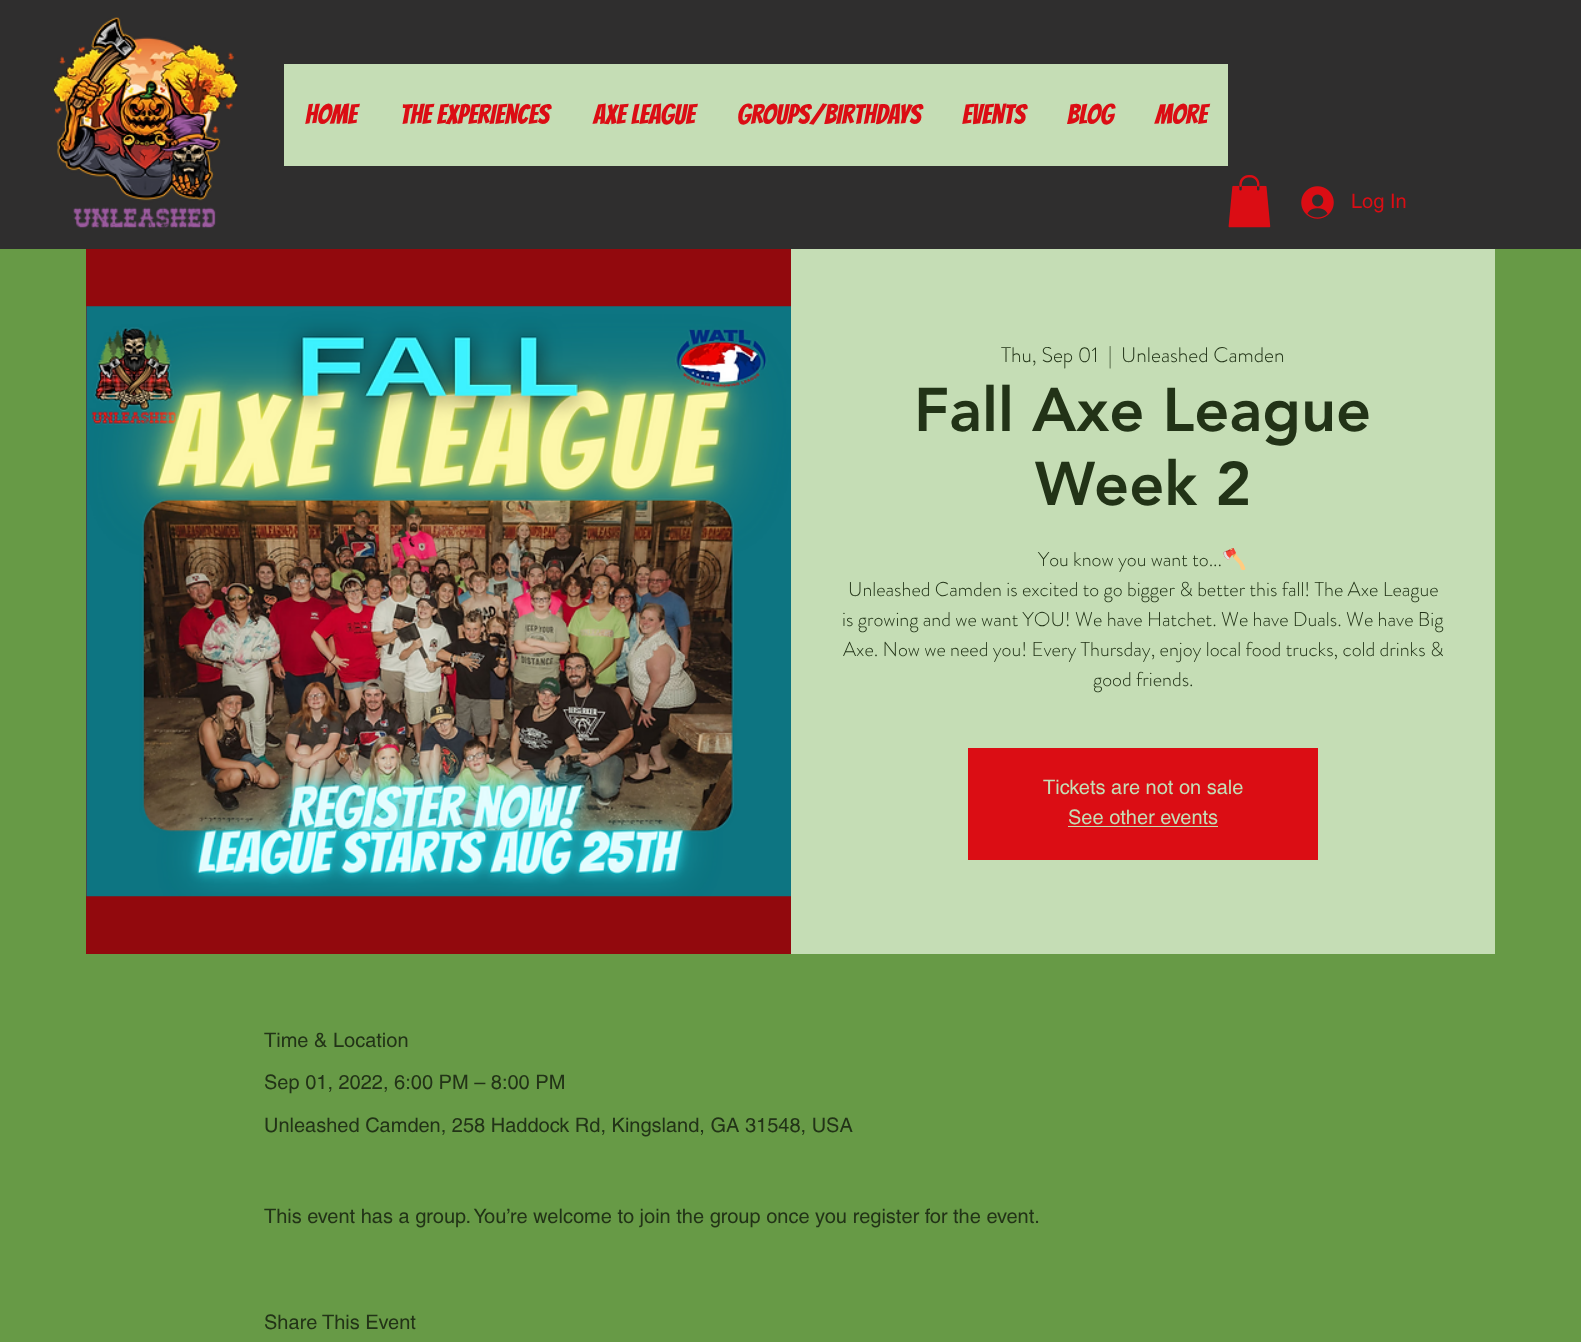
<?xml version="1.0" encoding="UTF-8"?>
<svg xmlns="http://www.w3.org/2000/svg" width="1581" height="1342">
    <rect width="100%" height="100%" fill="#2F2E2E"/>
    <image x="53" y="17" width="185" height="211" href="img_01.png"/>
    <rect x="284" y="64" width="944" height="102" fill="#C5DDB5"/>
    <text x="305" y="124" font-family="Bangers" font-size="27.5" fill="#DB0D14">HOME</text>
    <text x="400" y="124" font-family="Bangers" font-size="27.5" fill="#DB0D14">The Experiences</text>
    <text x="593" y="124" font-family="Bangers" font-size="27.5" fill="#DB0D14">Axe League</text>
    <text x="737" y="124" font-family="Bangers" font-size="27.5" fill="#DB0D14">Groups/Birthdays</text>
    <text x="962" y="124" font-family="Bangers" font-size="27.5" fill="#DB0D14">Events</text>
    <text x="1067" y="124" font-family="Bangers" font-size="27.5" fill="#DB0D14">Blog</text>
    <text x="1155" y="124" font-family="Bangers" font-size="27.5" fill="#DB0D14">More</text>
    <image x="1228" y="175" width="43" height="53" href="img_02.png"/>
    <image x="1301" y="186" width="33" height="33" href="img_03.png"/>
    <text x="1351" y="208" font-family="helvetica" font-size="20" fill="#DB0D14">Log In</text>
    <rect x="0" y="249" width="1581" height="1093" fill="#679A46"/>
    <rect x="86" y="249" width="705" height="705" fill="#92090D"/>
    <image x="86" y="306" width="705" height="591" href="img_04.png"/>
    <rect x="791" y="249" width="704" height="705" fill="#C5DDB5"/>
    <text x="1001" y="362" font-family="'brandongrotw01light'" font-size="21.25" font-weight="300" fill="#223317">Thu, Sep 01</text>
    <text x="1108" y="362" font-family="'brandongrotw01light'" font-size="21.25" font-weight="300" fill="#223317">|</text>
    <text x="1121" y="362" font-family="'brandongrotw01light'" font-size="21.25" font-weight="300" fill="#223317">Unleashed Camden</text>
    <text x="914" y="431" font-family="'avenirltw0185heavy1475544'" font-size="61.25" font-weight="900" fill="#223317">Fall Axe League</text>
    <text x="1035" y="505" font-family="'avenirltw0185heavy1475544'" font-size="61.25" font-weight="900" fill="#223317">Week 2</text>
    <text x="1038" y="566" font-family="'brandongrotw01light'" font-size="20" font-weight="300" fill="#223317">You know you want to...</text>
    <text x="1222" y="566" font-family="Noto Color Emoji" font-size="20" fill="#223317">🪓</text>
    <text x="848" y="596" font-family="'brandongrotw01light'" font-size="20" font-weight="300" fill="#223317">Unleashed Camden is excited to go bigger &amp; better this fall! The Axe League</text>
    <text x="842" y="626" font-family="'brandongrotw01light'" font-size="20" font-weight="300" fill="#223317">is growing and we want YOU! We have Hatchet. We have Duals. We have Big</text>
    <text x="843" y="656" font-family="'brandongrotw01light'" font-size="20" font-weight="300" fill="#223317">Axe. Now we need you! Every Thursday, enjoy local food trucks, cold drinks &amp;</text>
    <text x="1093" y="686" font-family="'brandongrotw01light'" font-size="20" font-weight="300" fill="#223317">good friends.</text>
    <rect x="968" y="748" width="350" height="112" fill="#DB0D14"/>
    <text x="1043" y="794" font-family="helvetica" font-size="20" fill="#C5DDB5">Tickets are not on sale</text>
    <text x="1068" y="824" font-family="helvetica" font-size="20" fill="#C5DDB5">See other events</text>
    <rect x="1068" y="826" width="150" height="1" fill="#C5DDB5"/>
    <text x="264" y="1047" font-family="helvetica" font-size="20" fill="#223317">Time &amp; Location</text>
    <text x="264" y="1089" font-family="helvetica" font-size="20" fill="#223317">Sep 01, 2022, 6:00 PM – 8:00 PM</text>
    <text x="264" y="1132" font-family="helvetica" font-size="20" fill="#223317">Unleashed Camden, 258 Haddock Rd, Kingsland, GA 31548, USA</text>
    <text x="264" y="1223" font-family="helvetica" font-size="20" fill="#223317">This event has a group. You’re welcome to join the group once you register for the event.</text>
    <text x="264" y="1329" font-family="helvetica" font-size="20" fill="#223317">Share This Event</text>
</svg>
